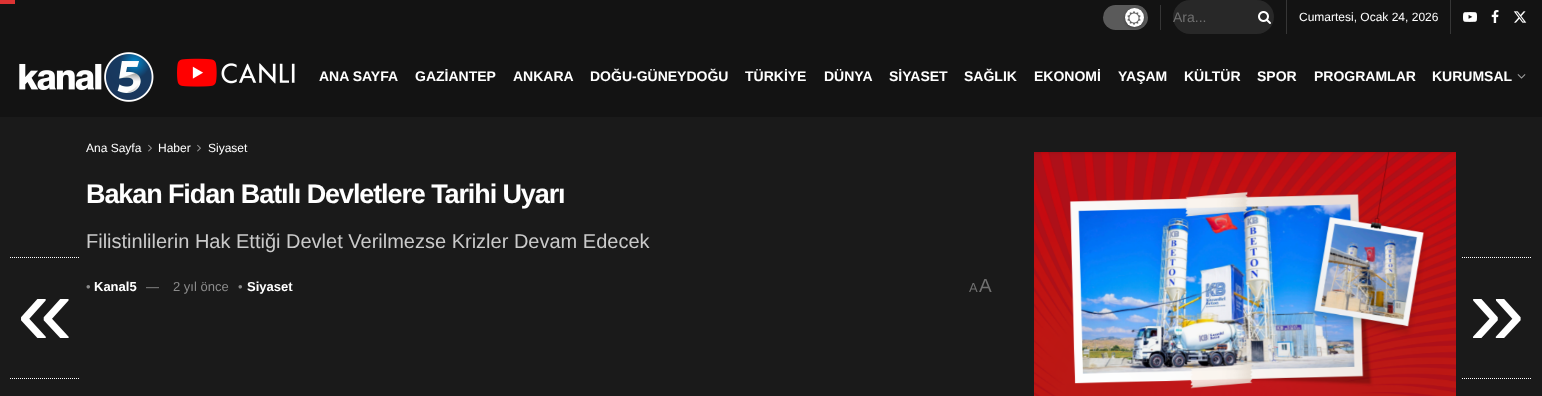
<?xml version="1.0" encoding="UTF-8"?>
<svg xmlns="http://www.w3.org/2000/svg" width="1542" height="396">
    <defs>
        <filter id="blur1" x="-50%" y="-200%" width="200%" height="500%"><feGaussianBlur stdDeviation="1.5"/></filter>
        <clipPath id="clip1"><rect x="1173" y="9" width="81" height="16"/></clipPath>
    </defs>
    <rect width="100%" height="100%" fill="#1A1A1A"/>
    <rect x="0" y="0" width="1542" height="117" fill="#131313"/>
    <rect x="0" y="0" width="15" height="4" fill="#DD3333"/>
    <rect x="1160" y="5" width="1" height="25" fill="#363636"/>
    <rect x="1103" y="5" width="45" height="25" rx="12.5" fill="#5A5A5A"/>
    <rect x="1125" y="9" width="19" height="19" rx="9.5" fill="#000000" fill-opacity="0.3" filter="url(#blur1)"/>
    <circle cx="1134.5" cy="17.5" r="9.5" fill="#FFFFFF"/>
    <image x="1127" y="11" width="14" height="14" href="img_01.png"/>
    <rect x="1286" y="0" width="1" height="34" fill="#363636"/>
    <rect x="1173" y="0" width="101" height="34" rx="17" fill="#282828"/>
    <g clip-path="url(#clip1)">
        <text x="1173" y="22" font-family="Liberation Sans" font-size="14" fill="#707070">Ara...</text>
    </g>
    <image x="1258" y="11" width="13" height="13" href="img_02.png"/>
    <rect x="1450" y="0" width="1" height="34" fill="#363636"/>
    <text x="1299" y="21" font-family="Liberation Sans" font-size="12" fill="#FFFFFF">Cumartesi, Ocak 24, 2026</text>
    <image x="1463" y="12" width="14" height="10" href="img_03.png"/>
    <image x="1491" y="10" width="8" height="13" href="img_04.png"/>
    <image x="1513" y="11" width="14" height="12" href="img_05.png"/>
    <image x="19" y="52" width="135" height="50" href="img_06.png"/>
    <image x="177" y="58" width="118" height="29" href="img_07.png"/>
    <text x="319" y="81" font-family="Liberation Sans" font-size="14" font-weight="700" fill="#FFFFFF">ANA SAYFA</text>
    <text x="415" y="81" font-family="Liberation Sans" font-size="14" font-weight="700" fill="#FFFFFF">GAZİANTEP</text>
    <text x="513" y="81" font-family="Liberation Sans" font-size="14" font-weight="700" fill="#FFFFFF">ANKARA</text>
    <text x="590" y="81" font-family="Liberation Sans" font-size="14" font-weight="700" fill="#FFFFFF">DOĞU-GÜNEYDOĞU</text>
    <text x="745" y="81" font-family="Liberation Sans" font-size="14" font-weight="700" fill="#FFFFFF">TÜRKİYE</text>
    <text x="824" y="81" font-family="Liberation Sans" font-size="14" font-weight="700" fill="#FFFFFF">DÜNYA</text>
    <text x="889" y="81" font-family="Liberation Sans" font-size="14" font-weight="700" fill="#FFFFFF">SİYASET</text>
    <text x="964" y="81" font-family="Liberation Sans" font-size="14" font-weight="700" fill="#FFFFFF">SAĞLIK</text>
    <text x="1034" y="81" font-family="Liberation Sans" font-size="14" font-weight="700" fill="#FFFFFF">EKONOMİ</text>
    <text x="1118" y="81" font-family="Liberation Sans" font-size="14" font-weight="700" fill="#FFFFFF">YAŞAM</text>
    <text x="1184" y="81" font-family="Liberation Sans" font-size="14" font-weight="700" fill="#FFFFFF">KÜLTÜR</text>
    <text x="1257" y="81" font-family="Liberation Sans" font-size="14" font-weight="700" fill="#FFFFFF">SPOR</text>
    <text x="1314" y="81" font-family="Liberation Sans" font-size="14" font-weight="700" fill="#FFFFFF">PROGRAMLAR</text>
    <text x="1432" y="81" font-family="Liberation Sans" font-size="14" font-weight="700" fill="#FFFFFF">KURUMSAL</text>
    <image x="1517" y="74" width="9" height="5" href="img_08.png"/>
    <text x="86" y="152" font-family="Liberation Sans" font-size="12" fill="#FFFFFF">Ana Sayfa</text>
    <image x="148" y="144" width="4" height="8" href="img_09.png"/>
    <text x="158" y="152" font-family="Liberation Sans" font-size="12" fill="#FFFFFF">Haber</text>
    <image x="197" y="144" width="4" height="8" href="img_09.png"/>
    <text x="208" y="152" font-family="Liberation Sans" font-size="12" fill="#FFFFFF">Siyaset</text>
    <text x="86" y="203" font-family="Liberation Sans" font-size="27" font-weight="700" letter-spacing="-1.1" fill="#FFFFFF">Bakan Fidan Batılı Devletlere Tarihi Uyarı</text>
    <text x="86" y="248" font-family="Liberation Sans" font-size="20" fill="#CACACA">Filistinlilerin Hak Ettiği Devlet Verilmezse Krizler Devam Edecek</text>
    <text x="86" y="291" font-family="Liberation Sans" font-size="13" fill="#8B8B8B">•</text>
    <text x="94" y="291" font-family="Liberation Sans" font-size="13" font-weight="700" fill="#FFFFFF">Kanal5</text>
    <text x="146" y="291" font-family="Liberation Sans" font-size="13" fill="#8B8B8B">—</text>
    <text x="173" y="291" font-family="Liberation Sans" font-size="13" fill="#8B8B8B">2 yıl önce</text>
    <text x="238" y="291" font-family="Liberation Sans" font-size="13" fill="#8B8B8B">•</text>
    <text x="247" y="291" font-family="Liberation Sans" font-size="13" font-weight="700" fill="#FFFFFF">Siyaset</text>
    <text x="969" y="292" font-family="Liberation Sans" font-size="13" fill="#707070">A</text>
    <text x="979" y="292" font-family="Liberation Sans" font-size="19" fill="#707070">A</text>
    <image x="1034" y="152" width="422" height="244" href="img_10.png"/>
    <path d="M 10 257.5 H 80" fill="none" stroke="#FFFFFF" stroke-dasharray="1 1"/>
    <path d="M 10 378.5 H 80" fill="none" stroke="#FFFFFF" stroke-dasharray="1 1"/>
    <text x="17" y="345" font-family="Liberation Sans" font-size="100" fill="#FFFFFF">«</text>
    <path d="M 1462 257.5 H 1532" fill="none" stroke="#FFFFFF" stroke-dasharray="1 1"/>
    <path d="M 1462 378.5 H 1532" fill="none" stroke="#FFFFFF" stroke-dasharray="1 1"/>
    <text x="1469" y="345" font-family="Liberation Sans" font-size="100" fill="#FFFFFF">»</text>
</svg>
